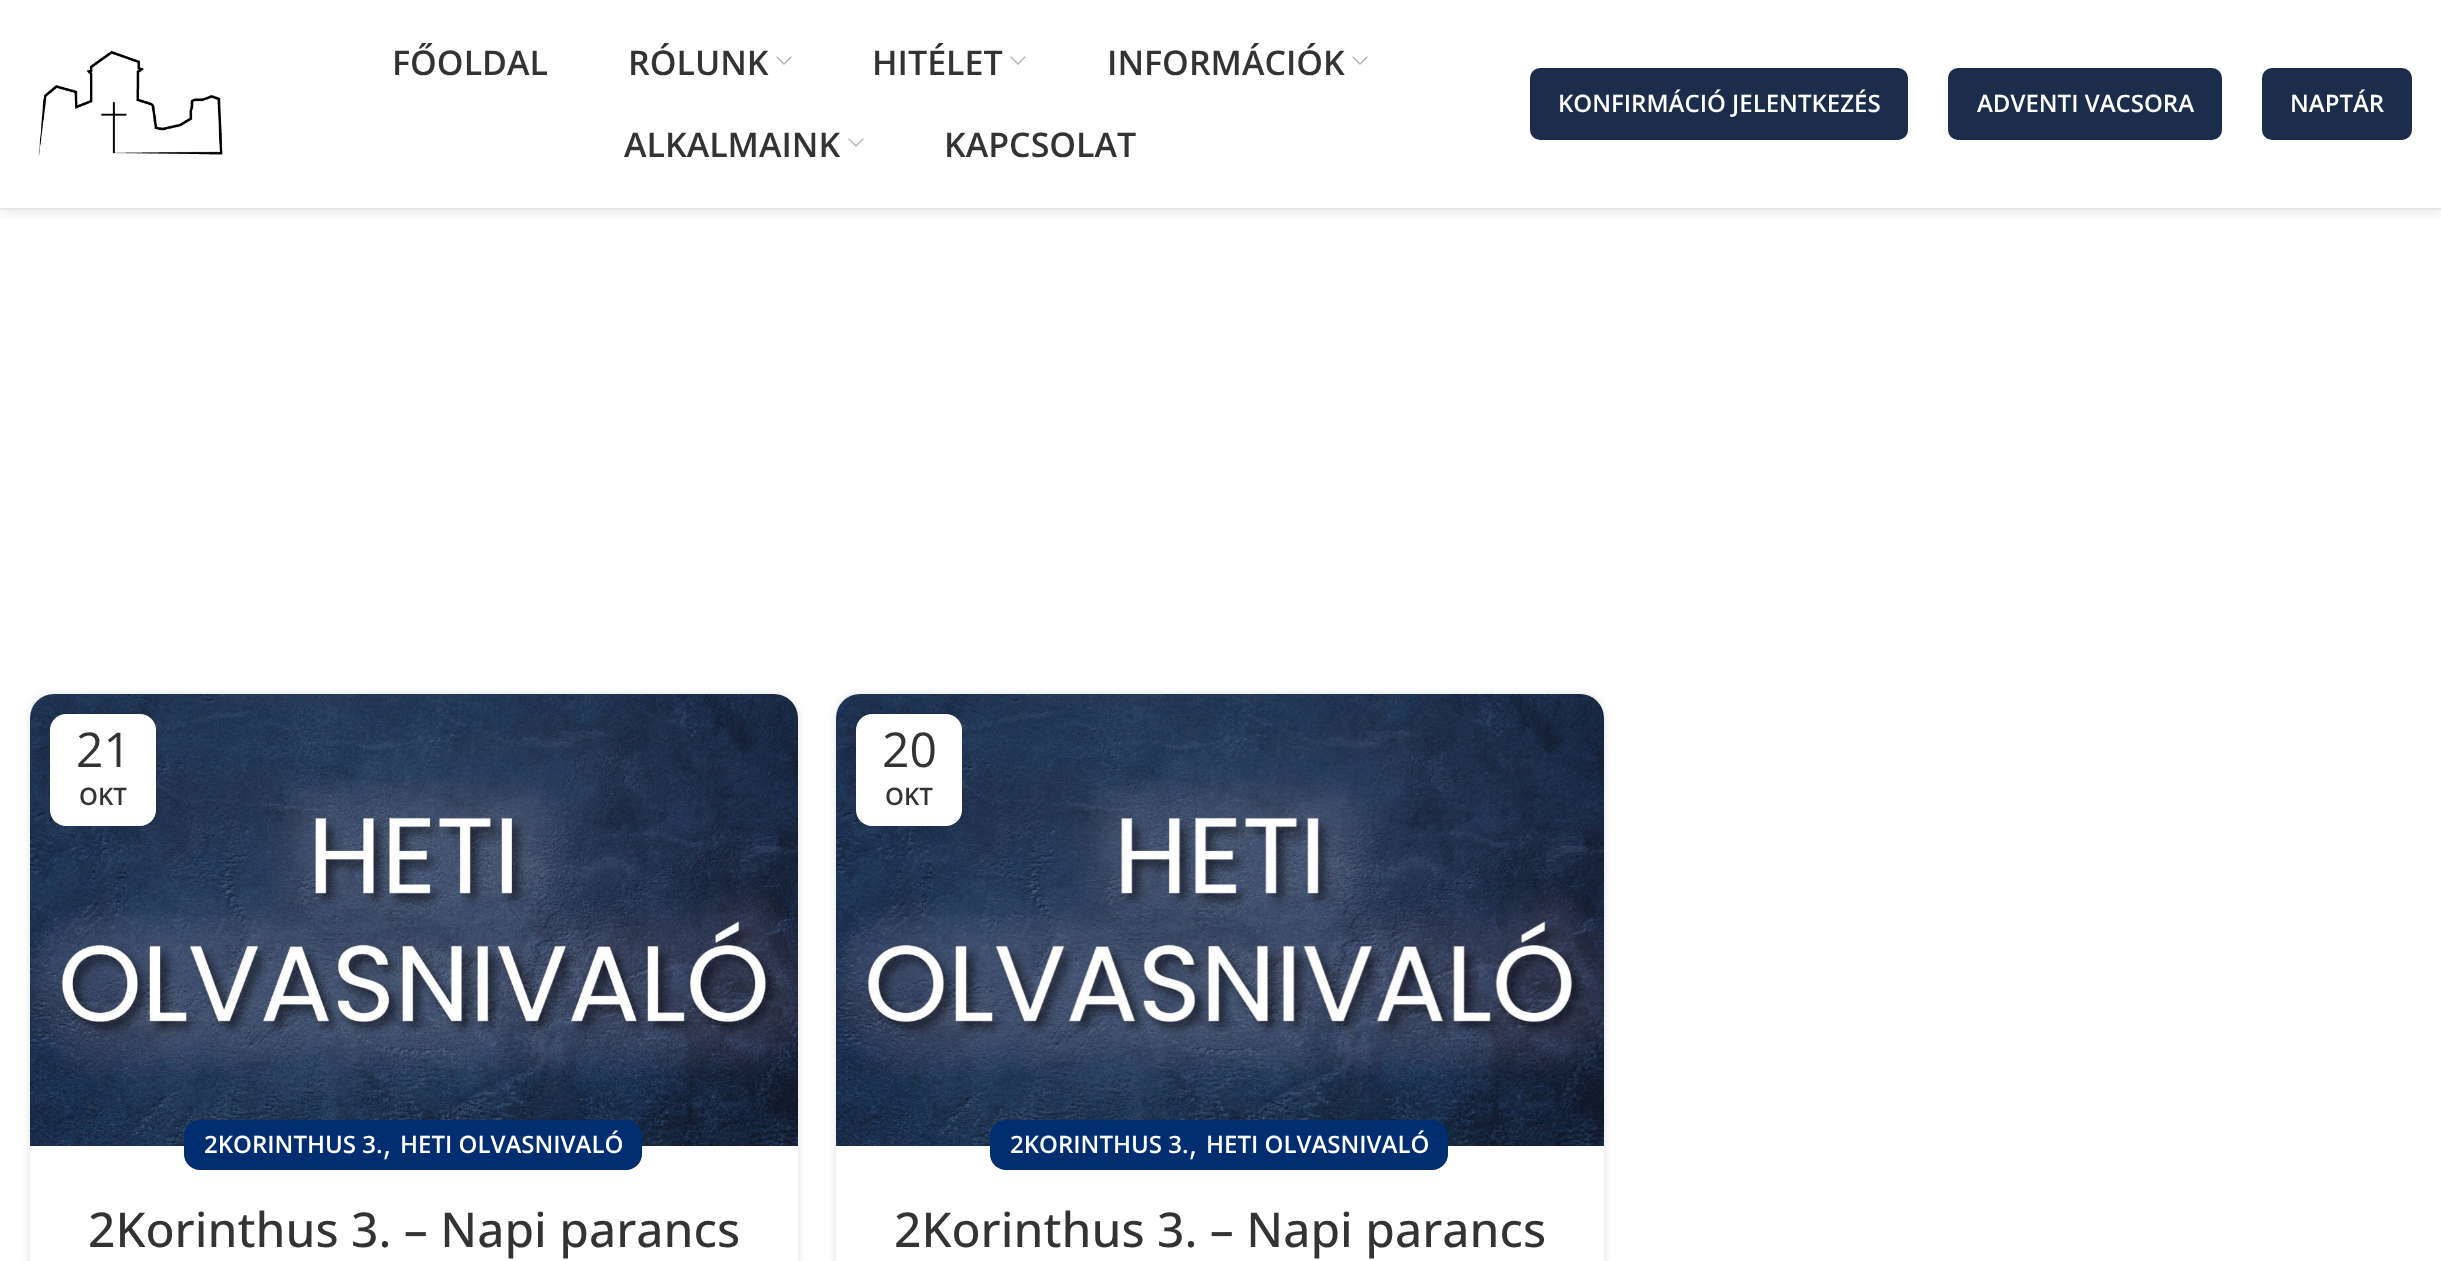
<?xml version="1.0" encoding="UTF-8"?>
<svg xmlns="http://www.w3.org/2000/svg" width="2441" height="1261">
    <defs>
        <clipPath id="clip1"><rect x="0" y="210" width="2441" height="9"/></clipPath>
        <filter id="blur1" x="-50%" y="-200%" width="200%" height="500%"><feGaussianBlur stdDeviation="8"/></filter>
        <clipPath id="clip2"><path d="M 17 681 H 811 V 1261 H 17 Z M 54 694 H 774 C 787.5 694 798 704.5 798 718 V 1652 C 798 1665.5 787.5 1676 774 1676 H 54 C 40.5 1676 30 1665.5 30 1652 V 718 C 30 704.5 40.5 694 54 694 Z" clip-rule="evenodd"/></clipPath>
        <filter id="blur2" x="-50%" y="-200%" width="200%" height="500%"><feGaussianBlur stdDeviation="4"/></filter>
        <filter id="blur3" x="-50%" y="-200%" width="200%" height="500%"><feGaussianBlur stdDeviation="9"/></filter>
        <clipPath id="clip3"><path d="M 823 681 H 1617 V 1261 H 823 Z M 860 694 H 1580 C 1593.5 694 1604 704.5 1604 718 V 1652 C 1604 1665.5 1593.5 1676 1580 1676 H 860 C 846.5 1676 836 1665.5 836 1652 V 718 C 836 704.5 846.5 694 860 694 Z" clip-rule="evenodd"/></clipPath>
    </defs>
    <rect width="100%" height="100%" fill="#FFFFFF"/>
    <g clip-path="url(#clip1)">
        <rect x="0" y="2" width="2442" height="210" fill="#000000" fill-opacity="0.1" filter="url(#blur1)"/>
    </g>
    <rect x="0" y="208" width="2441" height="2" fill="#E6E6E6"/>
    <image x="38" y="50" width="185" height="106" href="img_01.png"/>
    <text x="392" y="75" font-family="Open Sans" font-size="34" font-weight="600" fill="#333333">FŐOLDAL</text>
    <text x="628" y="75" font-family="Open Sans" font-size="34" font-weight="600" fill="#333333">RÓLUNK</text>
    <image x="776" y="56" width="16" height="9" href="img_02.png"/>
    <text x="872" y="75" font-family="Open Sans" font-size="34" font-weight="600" fill="#333333">HITÉLET</text>
    <image x="1010" y="56" width="16" height="9" href="img_02.png"/>
    <text x="1107" y="75" font-family="Open Sans" font-size="34" font-weight="600" fill="#333333">INFORMÁCIÓK</text>
    <image x="1352" y="56" width="16" height="9" href="img_02.png"/>
    <text x="624" y="157" font-family="Open Sans" font-size="34" font-weight="600" fill="#333333">ALKALMAINK</text>
    <image x="848" y="138" width="16" height="9" href="img_02.png"/>
    <text x="944" y="157" font-family="Open Sans" font-size="34" font-weight="600" fill="#333333">KAPCSOLAT</text>
    <rect x="1530" y="68" width="378" height="72" rx="10" fill="#1C2C4B"/>
    <text x="1558" y="112" font-family="Open Sans" font-size="24" font-weight="600" fill="#FFFFFF">KONFIRMÁCIÓ JELENTKEZÉS</text>
    <rect x="1948" y="68" width="274" height="72" rx="10" fill="#1C2C4B"/>
    <text x="1977" y="112" font-family="Open Sans" font-size="24" font-weight="600" fill="#FFFFFF">ADVENTI VACSORA</text>
    <rect x="2262" y="68" width="150" height="72" rx="10" fill="#1C2C4B"/>
    <text x="2290" y="112" font-family="Open Sans" font-size="24" font-weight="600" fill="#FFFFFF">NAPTÁR</text>
    <g clip-path="url(#clip2)">
        <rect x="30" y="694" width="768" height="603" rx="24" fill="#000000" fill-opacity="0.12" filter="url(#blur2)"/>
    </g>
    <image x="30" y="694" width="768" height="452" href="img_03.png"/>
    <rect x="50" y="714" width="106" height="112" rx="16" fill="#000000" fill-opacity="0.1" filter="url(#blur3)"/>
    <rect x="50" y="714" width="106" height="112" rx="16" fill="#FFFFFF"/>
    <text x="76" y="767" font-family="Open Sans" font-size="48" fill="#333333">21</text>
    <text x="79" y="805" font-family="Open Sans" font-size="24" font-weight="600" fill="#333333">OKT</text>
    <rect x="184" y="1120" width="458" height="50" rx="16" fill="#002E70"/>
    <text x="204" y="1153" font-family="Open Sans" font-size="24" font-weight="600" fill="#FFFFFF">2KORINTHUS 3.</text>
    <text x="400" y="1153" font-family="Open Sans" font-size="24" font-weight="600" fill="#FFFFFF">HETI OLVASNIVALÓ</text>
    <text x="383" y="1155" font-family="Open Sans" font-size="32" fill="#FFFFFF">,</text>
    <text x="88" y="1247" font-family="Open Sans" font-size="48" font-weight="500" fill="#333333">2Korinthus 3. – Napi parancs</text>
    <g clip-path="url(#clip3)">
        <rect x="836" y="694" width="768" height="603" rx="24" fill="#000000" fill-opacity="0.12" filter="url(#blur2)"/>
    </g>
    <image x="836" y="694" width="768" height="452" href="img_04.png"/>
    <rect x="856" y="714" width="106" height="112" rx="16" fill="#000000" fill-opacity="0.1" filter="url(#blur3)"/>
    <rect x="856" y="714" width="106" height="112" rx="16" fill="#FFFFFF"/>
    <text x="882" y="767" font-family="Open Sans" font-size="48" fill="#333333">20</text>
    <text x="885" y="805" font-family="Open Sans" font-size="24" font-weight="600" fill="#333333">OKT</text>
    <rect x="990" y="1120" width="458" height="50" rx="16" fill="#002E70"/>
    <text x="1010" y="1153" font-family="Open Sans" font-size="24" font-weight="600" fill="#FFFFFF">2KORINTHUS 3.</text>
    <text x="1206" y="1153" font-family="Open Sans" font-size="24" font-weight="600" fill="#FFFFFF">HETI OLVASNIVALÓ</text>
    <text x="1189" y="1155" font-family="Open Sans" font-size="32" fill="#FFFFFF">,</text>
    <text x="894" y="1247" font-family="Open Sans" font-size="48" font-weight="500" fill="#333333">2Korinthus 3. – Napi parancs</text>
</svg>
